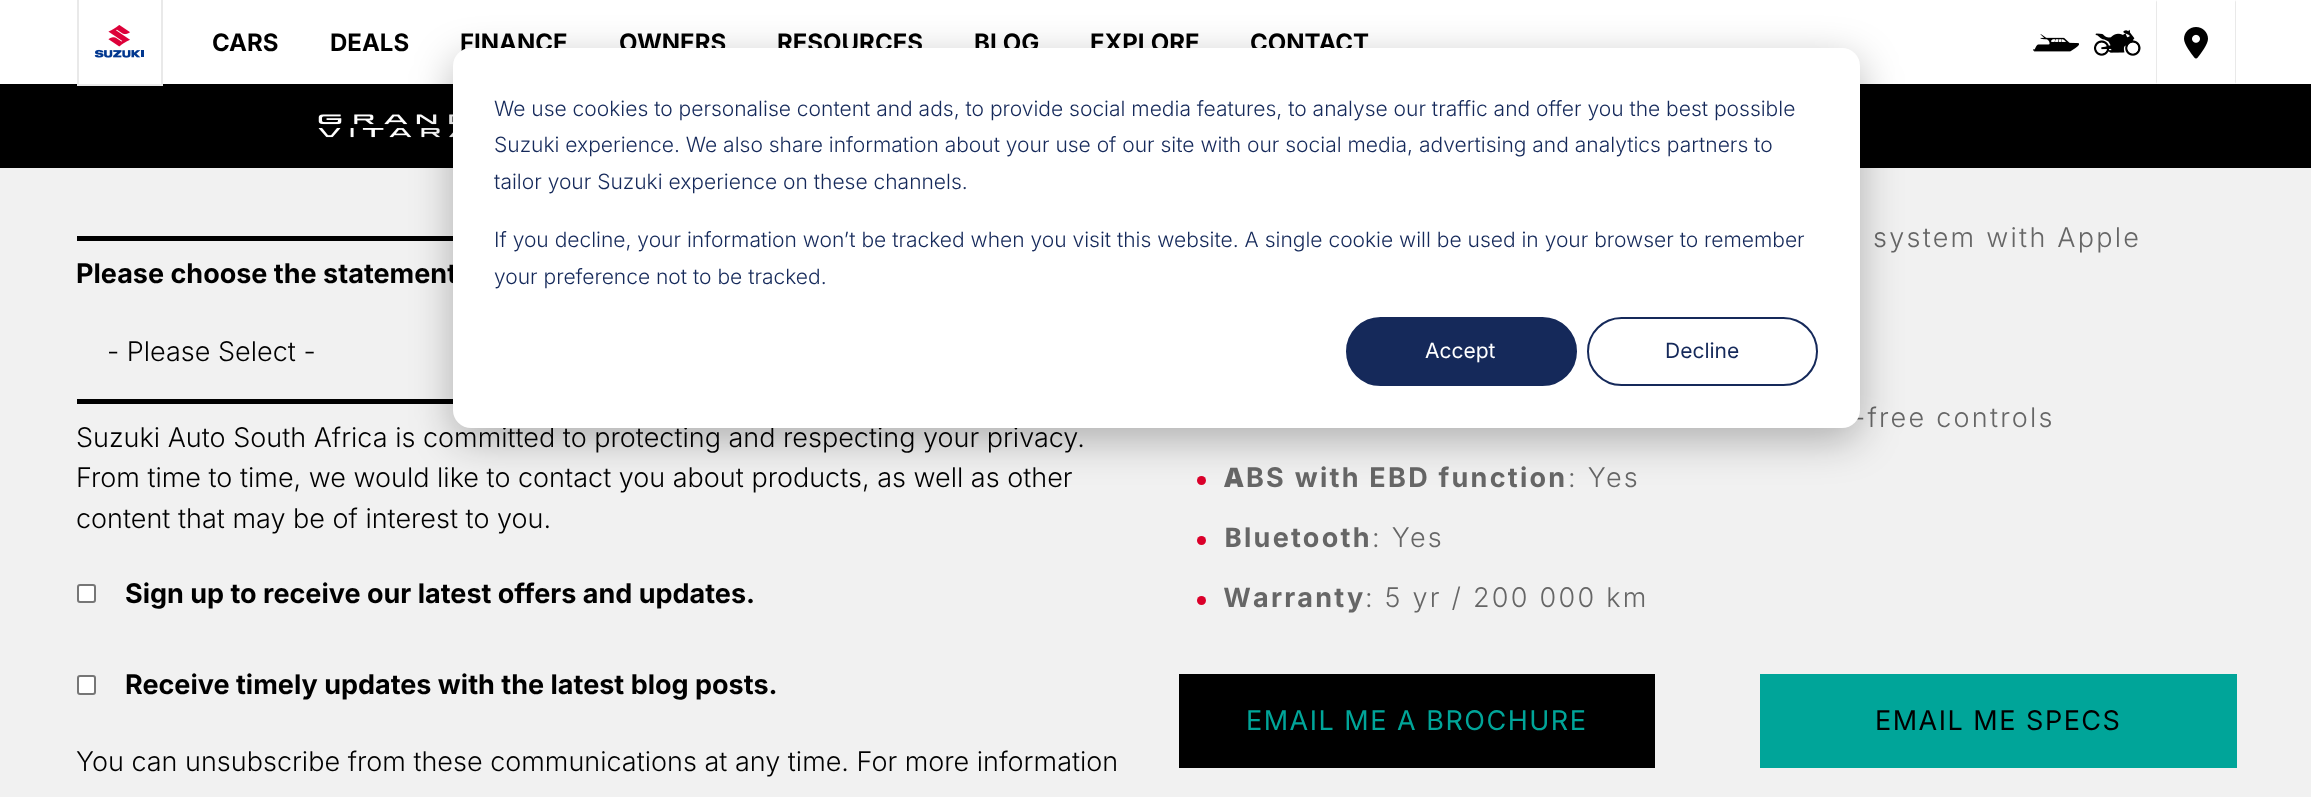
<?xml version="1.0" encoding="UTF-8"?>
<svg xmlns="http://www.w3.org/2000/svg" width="2311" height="797">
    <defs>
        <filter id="blur1" x="-50%" y="-200%" width="200%" height="500%"><feGaussianBlur stdDeviation="21"/></filter>
    </defs>
    <rect width="100%" height="100%" fill="#F1F1F1"/>
    <rect x="0" y="0" width="2311" height="84" fill="#FFFFFF"/>
    <rect x="0" y="84" width="2311" height="84" fill="#000000"/>
    <rect x="161" y="0" width="2" height="86" fill="#E9E9E9"/>
    <rect x="77" y="84" width="85" height="2" fill="#E9E9E9"/>
    <rect x="77" y="0" width="2" height="86" fill="#E9E9E9"/>
    <image x="94" y="25" width="50" height="33" href="img_01.png"/>
    <text x="212" y="51" font-family="Inter" font-size="24" font-weight="700" fill="#000000">CARS</text>
    <text x="330" y="51" font-family="Inter" font-size="24" font-weight="700" fill="#000000">DEALS</text>
    <text x="460" y="51" font-family="Inter" font-size="24" font-weight="700" fill="#000000">FINANCE</text>
    <text x="619" y="51" font-family="Inter" font-size="24" font-weight="700" fill="#000000">OWNERS</text>
    <text x="777" y="51" font-family="Inter" font-size="24" font-weight="700" fill="#000000">RESOURCES</text>
    <text x="974" y="51" font-family="Inter" font-size="24" font-weight="700" fill="#000000">BLOG</text>
    <text x="1090" y="51" font-family="Inter" font-size="24" font-weight="700" fill="#000000">EXPLORE</text>
    <text x="1250" y="51" font-family="Inter" font-size="24" font-weight="700" fill="#000000">CONTACT</text>
    <image x="2033" y="34" width="46" height="18" href="img_02.png"/>
    <image x="2094" y="29" width="47" height="27" href="img_03.png"/>
    <path d="M 2236 0 V 84 L 2235 82 V 2 Z" fill="#E9E9E9"/>
    <path d="M 2156 84 V 0 L 2157 2 V 82 Z" fill="#E9E9E9"/>
    <image x="2184" y="27" width="24" height="32" href="img_04.png"/>
    <image x="318" y="114" width="135" height="24" href="img_05.png"/>
    <rect x="77" y="236" width="376" height="5" fill="#000000"/>
    <text x="76" y="283" font-family="Inter" font-size="27" font-weight="700" fill="#000000">Please choose the statement</text>
    <rect x="77" y="399" width="376" height="5" fill="#000000"/>
    <text x="107" y="361" font-family="Inter" font-size="27" font-weight="300" fill="#000000">- Please Select -</text>
    <text font-family="Inter" font-size="27" font-weight="300" fill="#000000">
        <tspan x="76" y="447">Suzuki Auto South Africa is committed to protecting and respecting your privacy.</tspan>
        <tspan x="76" y="487">From time to time, we would like to contact you about products, as well as other</tspan>
        <tspan x="76" y="528">content that may be of interest to you.</tspan>
    </text>
    <rect x="78" y="585" width="17" height="17" rx="2" fill="#FFFFFF" stroke="#767676" stroke-width="2"/>
    <text x="125" y="603" font-family="Inter" font-size="27" font-weight="700" fill="#000000">Sign up to receive our latest offers and updates.</text>
    <rect x="78" y="676" width="17" height="18" rx="2" fill="#FFFFFF" stroke="#767676" stroke-width="2"/>
    <text x="125" y="694" font-family="Inter" font-size="27" font-weight="700" fill="#000000">Receive timely updates with the latest blog posts.</text>
    <text x="76" y="771" font-family="Inter" font-size="27" font-weight="300" fill="#000000">You can unsubscribe from these communications at any time. For more information</text>
    <text x="1873" y="247" font-family="Inter" font-size="27" font-weight="300" letter-spacing="2.25" fill="#666666">system with Apple</text>
    <text x="1853" y="427" font-family="Inter" font-size="27" font-weight="300" letter-spacing="2.25" fill="#666666">-free controls</text>
    <circle cx="1201.5" cy="480.5" r="4.5" fill="#DB002A"/>
    <text x="1224" y="487" font-family="Noto Sans" font-size="27" font-weight="900" letter-spacing="2.25" fill="#666666">A</text>
    <text x="1246" y="487" font-family="Inter" font-size="27" font-weight="700" letter-spacing="2.25" fill="#666666">BS with EBD function</text>
    <text x="1568" y="487" font-family="Inter" font-size="27" font-weight="300" letter-spacing="2.25" fill="#666666">: Yes</text>
    <circle cx="1201.5" cy="540.5" r="4.5" fill="#DB002A"/>
    <text x="1224" y="547" font-family="Noto Sans" font-size="27" font-weight="700" letter-spacing="2.25" fill="#666666">B</text>
    <text x="1244" y="547" font-family="Inter" font-size="27" font-weight="700" letter-spacing="2.25" fill="#666666">luetooth</text>
    <text x="1372" y="547" font-family="Inter" font-size="27" font-weight="300" letter-spacing="2.25" fill="#666666">: Yes</text>
    <circle cx="1201.5" cy="600.5" r="4.5" fill="#DB002A"/>
    <text x="1224" y="607" font-family="Noto Sans" font-size="27" font-weight="700" letter-spacing="2.25" fill="#666666">W</text>
    <text x="1253" y="607" font-family="Inter" font-size="27" font-weight="700" letter-spacing="2.25" fill="#666666">arranty</text>
    <text x="1365" y="607" font-family="Inter" font-size="27" font-weight="300" letter-spacing="2.25" fill="#666666">: 5 yr / 200 000 km</text>
    <rect x="1179" y="674" width="476" height="94" fill="#000000"/>
    <text x="1246" y="730" font-family="Inter" font-size="27" letter-spacing="1.5" fill="#00A599">EMAIL ME A BROCHURE</text>
    <rect x="1760" y="674" width="477" height="94" fill="#00A599"/>
    <text x="1875" y="730" font-family="Inter" font-size="27" letter-spacing="1.5" fill="#000000">EMAIL ME SPECS</text>
    <rect x="453" y="60" width="1407" height="380" rx="18" fill="#000000" fill-opacity="0.28" filter="url(#blur1)"/>
    <rect x="453" y="48" width="1407" height="380" rx="18" fill="#FFFFFF"/>
    <text font-family="Inter" font-size="21" font-weight="300" fill="#15295A">
        <tspan x="494" y="116">We use cookies to personalise content and ads, to provide social media features, to analyse our traffic and offer you the best possible</tspan>
        <tspan x="494" y="152">Suzuki experience. We also share information about your use of our site with our social media, advertising and analytics partners to</tspan>
        <tspan x="494" y="189">tailor your Suzuki experience on these channels.</tspan>
    </text>
    <text font-family="Inter" font-size="21" font-weight="300" fill="#15295A">
        <tspan x="494" y="247">If you decline, your information won’t be tracked when you visit this website. A single cookie will be used in your browser to remember</tspan>
        <tspan x="494" y="284">your preference not to be tracked.</tspan>
    </text>
    <rect x="1347" y="318" width="229" height="67" rx="33.5" fill="#15295A" stroke="#15295A" stroke-width="2"/>
    <text x="1425" y="358" font-family="Inter" font-size="21" fill="#FFFFFF">Accept</text>
    <rect x="1588" y="318" width="229" height="67" rx="33.5" fill="none" stroke="#15295A" stroke-width="2"/>
    <text x="1665" y="358" font-family="Inter" font-size="21" fill="#15295A">Decline</text>
</svg>
